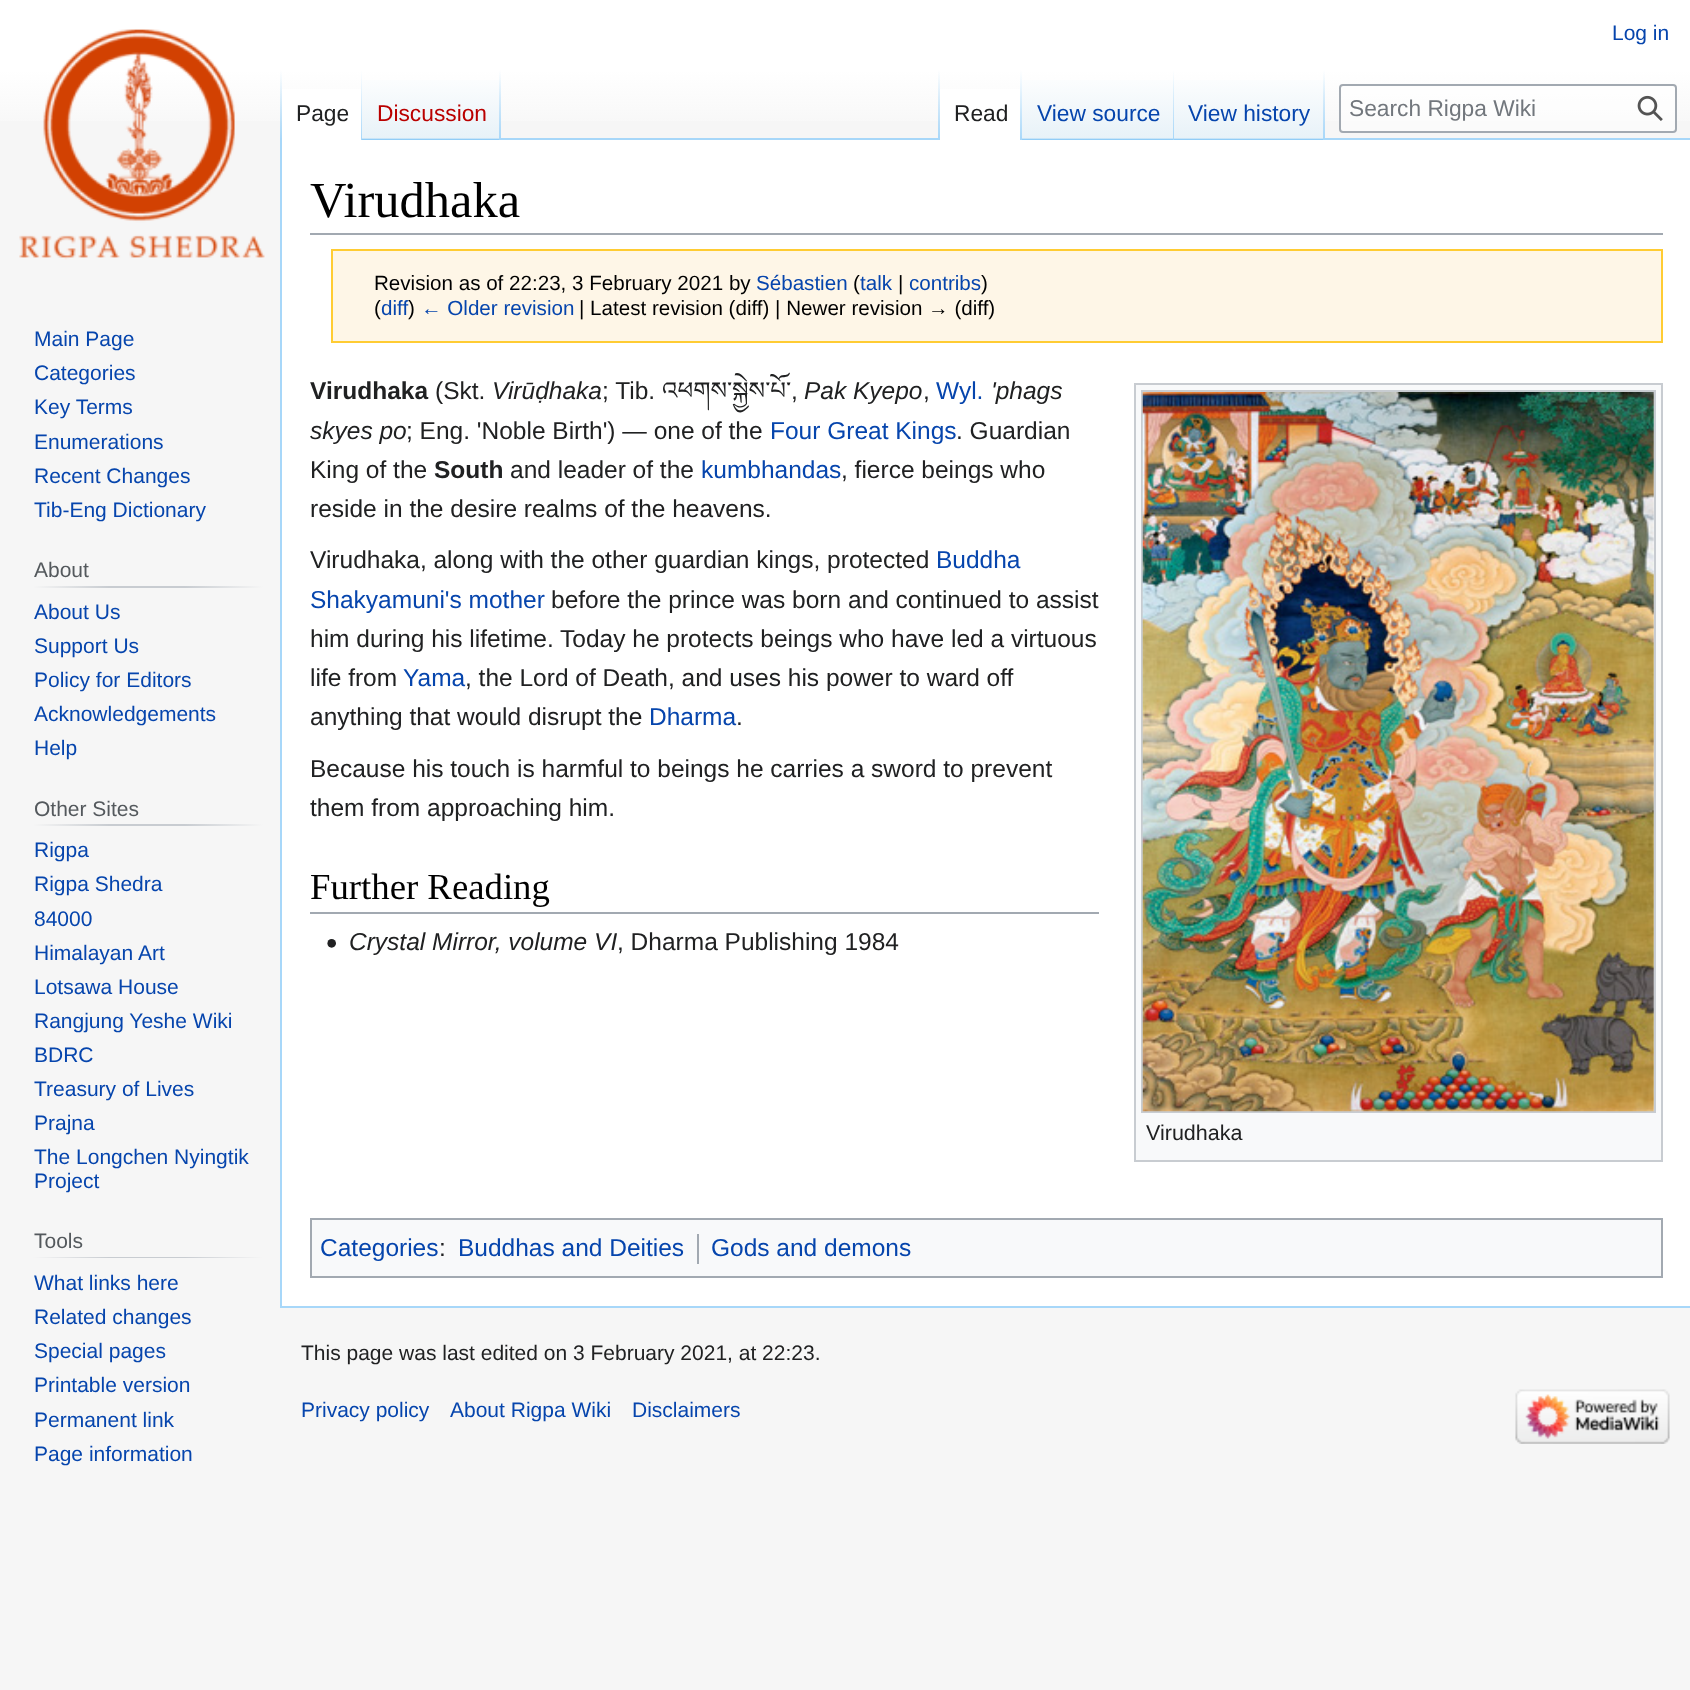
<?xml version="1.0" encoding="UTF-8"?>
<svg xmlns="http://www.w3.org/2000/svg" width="1690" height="1690">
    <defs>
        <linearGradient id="g1" gradientUnits="userSpaceOnUse" x1="845" y1="0" x2="845" y2="140"><stop offset="0.5" stop-color="#FFFFFF"/><stop offset="1" stop-color="#F6F6F6"/></linearGradient>
        <linearGradient id="g2" gradientUnits="userSpaceOnUse" x1="281" y1="70" x2="281" y2="140"><stop offset="0" stop-color="#A7D7F9" stop-opacity="0"/><stop offset="1" stop-color="#A7D7F9"/></linearGradient>
        <linearGradient id="g3" gradientUnits="userSpaceOnUse" x1="361" y1="70" x2="361" y2="140"><stop offset="0" stop-color="#FFFFFF"/><stop offset="1" stop-color="#A7D7F9"/></linearGradient>
        <linearGradient id="g4" gradientUnits="userSpaceOnUse" x1="431" y1="140" x2="431" y2="70"><stop offset="0" stop-color="#77C1F6"/><stop offset="0.03" stop-color="#E8F2F8"/><stop offset="1" stop-color="#FFFFFF"/></linearGradient>
        <linearGradient id="g5" gradientUnits="userSpaceOnUse" x1="500" y1="70" x2="500" y2="140"><stop offset="0" stop-color="#A7D7F9" stop-opacity="0"/><stop offset="1" stop-color="#A7D7F9"/></linearGradient>
        <linearGradient id="g6" gradientUnits="userSpaceOnUse" x1="939" y1="70" x2="939" y2="140"><stop offset="0" stop-color="#A7D7F9" stop-opacity="0"/><stop offset="1" stop-color="#A7D7F9"/></linearGradient>
        <linearGradient id="g7" gradientUnits="userSpaceOnUse" x1="1021" y1="70" x2="1021" y2="140"><stop offset="0" stop-color="#FFFFFF"/><stop offset="1" stop-color="#A7D7F9"/></linearGradient>
        <linearGradient id="g8" gradientUnits="userSpaceOnUse" x1="1098" y1="140" x2="1098" y2="70"><stop offset="0" stop-color="#77C1F6"/><stop offset="0.03" stop-color="#E8F2F8"/><stop offset="1" stop-color="#FFFFFF"/></linearGradient>
        <linearGradient id="g9" gradientUnits="userSpaceOnUse" x1="1173" y1="70" x2="1173" y2="140"><stop offset="0" stop-color="#A7D7F9" stop-opacity="0"/><stop offset="1" stop-color="#A7D7F9"/></linearGradient>
        <linearGradient id="g10" gradientUnits="userSpaceOnUse" x1="1250" y1="140" x2="1250" y2="70"><stop offset="0" stop-color="#77C1F6"/><stop offset="0.03" stop-color="#E8F2F8"/><stop offset="1" stop-color="#FFFFFF"/></linearGradient>
        <linearGradient id="g11" gradientUnits="userSpaceOnUse" x1="1324" y1="70" x2="1324" y2="140"><stop offset="0" stop-color="#A7D7F9" stop-opacity="0"/><stop offset="1" stop-color="#A7D7F9"/></linearGradient>
        <linearGradient id="g12" gradientUnits="userSpaceOnUse" x1="33" y1="587" x2="263" y2="587"><stop offset="0" stop-color="#F6F6F6"/><stop offset="0.33" stop-color="#C8CCD1"/><stop offset="0.66" stop-color="#C8CCD1"/><stop offset="1" stop-color="#F6F6F6"/></linearGradient>
        <linearGradient id="g13" gradientUnits="userSpaceOnUse" x1="33" y1="825" x2="263" y2="825"><stop offset="0" stop-color="#F6F6F6"/><stop offset="0.33" stop-color="#C8CCD1"/><stop offset="0.66" stop-color="#C8CCD1"/><stop offset="1" stop-color="#F6F6F6"/></linearGradient>
        <linearGradient id="g14" gradientUnits="userSpaceOnUse" x1="33" y1="1257" x2="263" y2="1257"><stop offset="0" stop-color="#F6F6F6"/><stop offset="0.33" stop-color="#C8CCD1"/><stop offset="0.66" stop-color="#C8CCD1"/><stop offset="1" stop-color="#F6F6F6"/></linearGradient>
    </defs>
    <rect width="100%" height="100%" fill="#F6F6F6"/>
    <rect x="0" y="0" width="1690" height="121" fill="url(#g1)"/>
    <text x="1612" y="40" font-family="Liberation Sans" font-size="21" fill="#0645AD">Log in</text>
    <rect x="280" y="1306" width="1410" height="2" fill="#A7D7F9"/>
    <rect x="280" y="138" width="2" height="1169" fill="#A7D7F9"/>
    <rect x="280" y="70" width="2" height="70" fill="url(#g2)"/>
    <rect x="282" y="89" width="79" height="51" fill="#FFFFFF"/>
    <rect x="361" y="70" width="1" height="70" fill="url(#g3)"/>
    <text x="296" y="121" font-family="Liberation Sans" font-size="22.75" fill="#202122">Page</text>
    <rect x="362" y="80" width="139" height="60" fill="url(#g4)"/>
    <rect x="499" y="70" width="2" height="70" fill="url(#g5)"/>
    <text x="377" y="121" font-family="Liberation Sans" font-size="22.75" fill="#BA0000">Discussion</text>
    <rect x="501" y="138" width="1189" height="2" fill="#A7D7F9"/>
    <rect x="938" y="70" width="2" height="70" fill="url(#g6)"/>
    <rect x="940" y="89" width="80" height="51" fill="#FFFFFF"/>
    <rect x="1020" y="70" width="2" height="70" fill="url(#g7)"/>
    <text x="954" y="121" font-family="Liberation Sans" font-size="22.75" fill="#202122">Read</text>
    <rect x="1022" y="80" width="152" height="60" fill="url(#g8)"/>
    <rect x="1173" y="70" width="1" height="70" fill="url(#g9)"/>
    <text x="1037" y="121" font-family="Liberation Sans" font-size="22.75" fill="#0645AD">View source</text>
    <rect x="1174" y="80" width="151" height="60" fill="url(#g10)"/>
    <rect x="1323" y="70" width="2" height="70" fill="url(#g11)"/>
    <text x="1188" y="121" font-family="Liberation Sans" font-size="22.75" fill="#0645AD">View history</text>
    <rect x="1340" y="85" width="336" height="47" rx="3" fill="#FFFFFF" fill-opacity="0.5" stroke="#A2A9B1" stroke-width="2"/>
    <text x="1349" y="116" font-family="Liberation Sans" font-size="22.75" fill="#72777D">Search Rigpa Wiki</text>
    <image x="1637" y="95" width="26" height="26" href="img_01.png"/>
    <image x="19" y="29" width="246" height="231" href="img_02.png"/>
    <text font-family="Liberation Sans" font-size="21" fill="#0645AD">
        <tspan x="34" y="346">Main Page</tspan>
        <tspan x="34" y="380">Categories</tspan>
        <tspan x="34" y="414">Key Terms</tspan>
        <tspan x="34" y="449">Enumerations</tspan>
        <tspan x="34" y="483">Recent Changes</tspan>
        <tspan x="34" y="517">Tib-Eng Dictionary</tspan>
    </text>
    <rect x="33" y="586" width="230" height="2" fill="url(#g12)"/>
    <text x="34" y="577" font-family="Liberation Sans" font-size="21" fill="#54595D">About</text>
    <text font-family="Liberation Sans" font-size="21" fill="#0645AD">
        <tspan x="34" y="619">About Us</tspan>
        <tspan x="34" y="653">Support Us</tspan>
        <tspan x="34" y="687">Policy for Editors</tspan>
        <tspan x="34" y="721">Acknowledgements</tspan>
        <tspan x="34" y="755">Help</tspan>
    </text>
    <rect x="33" y="824" width="230" height="2" fill="url(#g13)"/>
    <text x="34" y="816" font-family="Liberation Sans" font-size="21" fill="#54595D">Other Sites</text>
    <text font-family="Liberation Sans" font-size="21" fill="#0645AD">
        <tspan x="34" y="857">Rigpa</tspan>
        <tspan x="34" y="891">Rigpa Shedra</tspan>
        <tspan x="34" y="926">84000</tspan>
        <tspan x="34" y="960">Himalayan Art</tspan>
        <tspan x="34" y="994">Lotsawa House</tspan>
        <tspan x="34" y="1028">Rangjung Yeshe Wiki</tspan>
        <tspan x="34" y="1062">BDRC</tspan>
        <tspan x="34" y="1096">Treasury of Lives</tspan>
        <tspan x="34" y="1130">Prajna</tspan>
        <tspan x="34" y="1164">The Longchen Nyingtik</tspan>
        <tspan x="34" y="1188">Project</tspan>
    </text>
    <rect x="33" y="1257" width="230" height="1" fill="url(#g14)"/>
    <text x="34" y="1248" font-family="Liberation Sans" font-size="21" fill="#54595D">Tools</text>
    <text font-family="Liberation Sans" font-size="21" fill="#0645AD">
        <tspan x="34" y="1290">What links here</tspan>
        <tspan x="34" y="1324">Related changes</tspan>
        <tspan x="34" y="1358">Special pages</tspan>
        <tspan x="34" y="1392">Printable version</tspan>
        <tspan x="34" y="1427">Permanent link</tspan>
        <tspan x="34" y="1461">Page information</tspan>
    </text>
    <rect x="282" y="140" width="1408" height="1166" fill="#FFFFFF"/>
    <rect x="310" y="233" width="1353" height="2" fill="#A2A9B1"/>
    <text x="310" y="217" font-family="Liberation Serif" font-size="50.5" fill="#000000">Virudhaka</text>
    <rect x="332" y="250" width="1330" height="92" fill="#FEF6E7" stroke="#FFCC33" stroke-width="2"/>
    <text x="374" y="290" font-family="Liberation Sans" font-size="20.6" fill="#000000">Revision as of 22:23, 3 February 2021 by</text>
    <text x="756" y="290" font-family="Liberation Sans" font-size="20.6" fill="#0645AD">Sébastien</text>
    <text x="853" y="290" font-family="Liberation Sans" font-size="20.6" fill="#000000">(</text>
    <text x="860" y="290" font-family="Liberation Sans" font-size="20.6" fill="#0645AD">talk</text>
    <text x="898" y="290" font-family="Liberation Sans" font-size="20.6" fill="#000000">|</text>
    <text x="909" y="290" font-family="Liberation Sans" font-size="20.6" fill="#0645AD">contribs</text>
    <text x="981" y="290" font-family="Liberation Sans" font-size="20.6" fill="#000000">)</text>
    <text x="374" y="315" font-family="Liberation Sans" font-size="20.6" fill="#000000">(</text>
    <text x="381" y="315" font-family="Liberation Sans" font-size="20.6" fill="#0645AD">diff</text>
    <text x="408" y="315" font-family="Liberation Sans" font-size="20.6" fill="#000000">)</text>
    <text x="421" y="315" font-family="Liberation Sans" font-size="20.6" fill="#0645AD">← Older revision</text>
    <text x="579" y="315" font-family="Liberation Sans" font-size="20.6" fill="#000000">| Latest revision (diff) | Newer revision → (diff)</text>
    <text x="310" y="399" font-family="Liberation Sans" font-size="24.5" font-weight="700" fill="#202122">Virudhaka</text>
    <text x="435" y="399" font-family="Liberation Sans" font-size="24.5" fill="#202122">(Skt.</text>
    <text x="492" y="399" font-family="Liberation Sans" font-size="24.5" font-style="italic" fill="#202122">Virūḍhaka</text>
    <text x="602" y="399" font-family="Liberation Sans" font-size="24.5" fill="#202122">; Tib.</text>
    <text x="662" y="399" font-family="Noto Serif Tibetan" font-size="24.5" fill="#202122">འཕགས་སྐྱེས་པོ་</text>
    <text x="791" y="399" font-family="Liberation Sans" font-size="24.5" fill="#202122">,</text>
    <text x="804" y="399" font-family="Liberation Sans" font-size="24.5" font-style="italic" fill="#202122">Pak Kyepo</text>
    <text x="923" y="399" font-family="Liberation Sans" font-size="24.5" fill="#202122">,</text>
    <text x="936" y="399" font-family="Liberation Sans" font-size="24.5" fill="#0645AD">Wyl.</text>
    <text x="991" y="399" font-family="Liberation Sans" font-size="24.5" font-style="italic" fill="#202122">'phags</text>
    <text x="310" y="439" font-family="Liberation Sans" font-size="24.5" font-style="italic" fill="#202122">skyes po</text>
    <text x="406" y="439" font-family="Liberation Sans" font-size="24.5" fill="#202122">; Eng. 'Noble Birth') — one of the</text>
    <text x="770" y="439" font-family="Liberation Sans" font-size="24.5" fill="#0645AD">Four Great Kings</text>
    <text x="956" y="439" font-family="Liberation Sans" font-size="24.5" fill="#202122">. Guardian</text>
    <text x="310" y="478" font-family="Liberation Sans" font-size="24.5" fill="#202122">King of the</text>
    <text x="434" y="478" font-family="Liberation Sans" font-size="24.5" font-weight="700" fill="#202122">South</text>
    <text x="510" y="478" font-family="Liberation Sans" font-size="24.5" fill="#202122">and leader of the</text>
    <text x="701" y="478" font-family="Liberation Sans" font-size="24.5" fill="#0645AD">kumbhandas</text>
    <text x="841" y="478" font-family="Liberation Sans" font-size="24.5" fill="#202122">, fierce beings who</text>
    <text x="310" y="517" font-family="Liberation Sans" font-size="24.5" fill="#202122">reside in the desire realms of the heavens.</text>
    <text x="310" y="568" font-family="Liberation Sans" font-size="24.5" fill="#202122">Virudhaka, along with the other guardian kings, protected</text>
    <text x="936" y="568" font-family="Liberation Sans" font-size="24.5" fill="#0645AD">Buddha</text>
    <text x="310" y="608" font-family="Liberation Sans" font-size="24.5" fill="#0645AD">Shakyamuni's mother</text>
    <text x="551" y="608" font-family="Liberation Sans" font-size="24.5" fill="#202122">before the prince was born and continued to assist</text>
    <text font-family="Liberation Sans" font-size="24.5" fill="#202122">
        <tspan x="310" y="647">him during his lifetime. Today he protects beings who have led a virtuous</tspan>
        <tspan x="310" y="686">life from</tspan>
    </text>
    <text x="403" y="686" font-family="Liberation Sans" font-size="24.5" fill="#0645AD">Yama</text>
    <text x="465" y="686" font-family="Liberation Sans" font-size="24.5" fill="#202122">, the Lord of Death, and uses his power to ward off</text>
    <text x="310" y="725" font-family="Liberation Sans" font-size="24.5" fill="#202122">anything that would disrupt the</text>
    <text x="649" y="725" font-family="Liberation Sans" font-size="24.5" fill="#0645AD">Dharma</text>
    <text x="736" y="725" font-family="Liberation Sans" font-size="24.5" fill="#202122">.</text>
    <text font-family="Liberation Sans" font-size="24.5" fill="#202122">
        <tspan x="310" y="777">Because his touch is harmful to beings he carries a sword to prevent</tspan>
        <tspan x="310" y="816">them from approaching him.</tspan>
    </text>
    <rect x="310" y="912" width="789" height="2" fill="#A2A9B1"/>
    <text x="310" y="899" font-family="Liberation Serif" font-size="36.75" fill="#000000">Further Reading</text>
    <image x="327" y="939" width="9" height="9" href="img_03.png"/>
    <text x="349" y="950" font-family="Liberation Sans" font-size="24.5" font-style="italic" fill="#202122">Crystal Mirror, volume VI</text>
    <text x="617" y="950" font-family="Liberation Sans" font-size="24.5" fill="#202122">, Dharma Publishing 1984</text>
    <rect x="1136" y="385" width="525" height="775" fill="#F8F9FA"/>
    <rect x="1134" y="383" width="529" height="2" fill="#C8CCD1"/>
    <rect x="1134" y="1160" width="529" height="2" fill="#C8CCD1"/>
    <rect x="1661" y="383" width="2" height="779" fill="#C8CCD1"/>
    <rect x="1134" y="383" width="2" height="779" fill="#C8CCD1"/>
    <rect x="1142" y="391" width="513" height="721" fill="none" stroke="#C8CCD1" stroke-width="2"/>
    <image x="1142" y="392" width="512" height="720" href="img_04.png"/>
    <text x="1146" y="1140" font-family="Liberation Sans" font-size="21.5" fill="#202122">Virudhaka</text>
    <rect x="311" y="1219" width="1351" height="58" fill="#F8F9FA" stroke="#A2A9B1" stroke-width="2"/>
    <text x="320" y="1256" font-family="Liberation Sans" font-size="24.5" fill="#0645AD">Categories</text>
    <text x="439" y="1256" font-family="Liberation Sans" font-size="24.5" fill="#202122">:</text>
    <text x="458" y="1256" font-family="Liberation Sans" font-size="24.5" fill="#0645AD">Buddhas and Deities</text>
    <rect x="697" y="1234" width="2" height="30" fill="#A2A9B1"/>
    <text x="711" y="1256" font-family="Liberation Sans" font-size="24.5" fill="#0645AD">Gods and demons</text>
    <text x="301" y="1360" font-family="Liberation Sans" font-size="21" fill="#202122">This page was last edited on 3 February 2021, at 22:23.</text>
    <text x="301" y="1417" font-family="Liberation Sans" font-size="21" fill="#0645AD">Privacy policy</text>
    <text x="450" y="1417" font-family="Liberation Sans" font-size="21" fill="#0645AD">About Rigpa Wiki</text>
    <text x="632" y="1417" font-family="Liberation Sans" font-size="21" fill="#0645AD">Disclaimers</text>
    <image x="1515" y="1389" width="155" height="55" href="img_05.png"/>
</svg>
